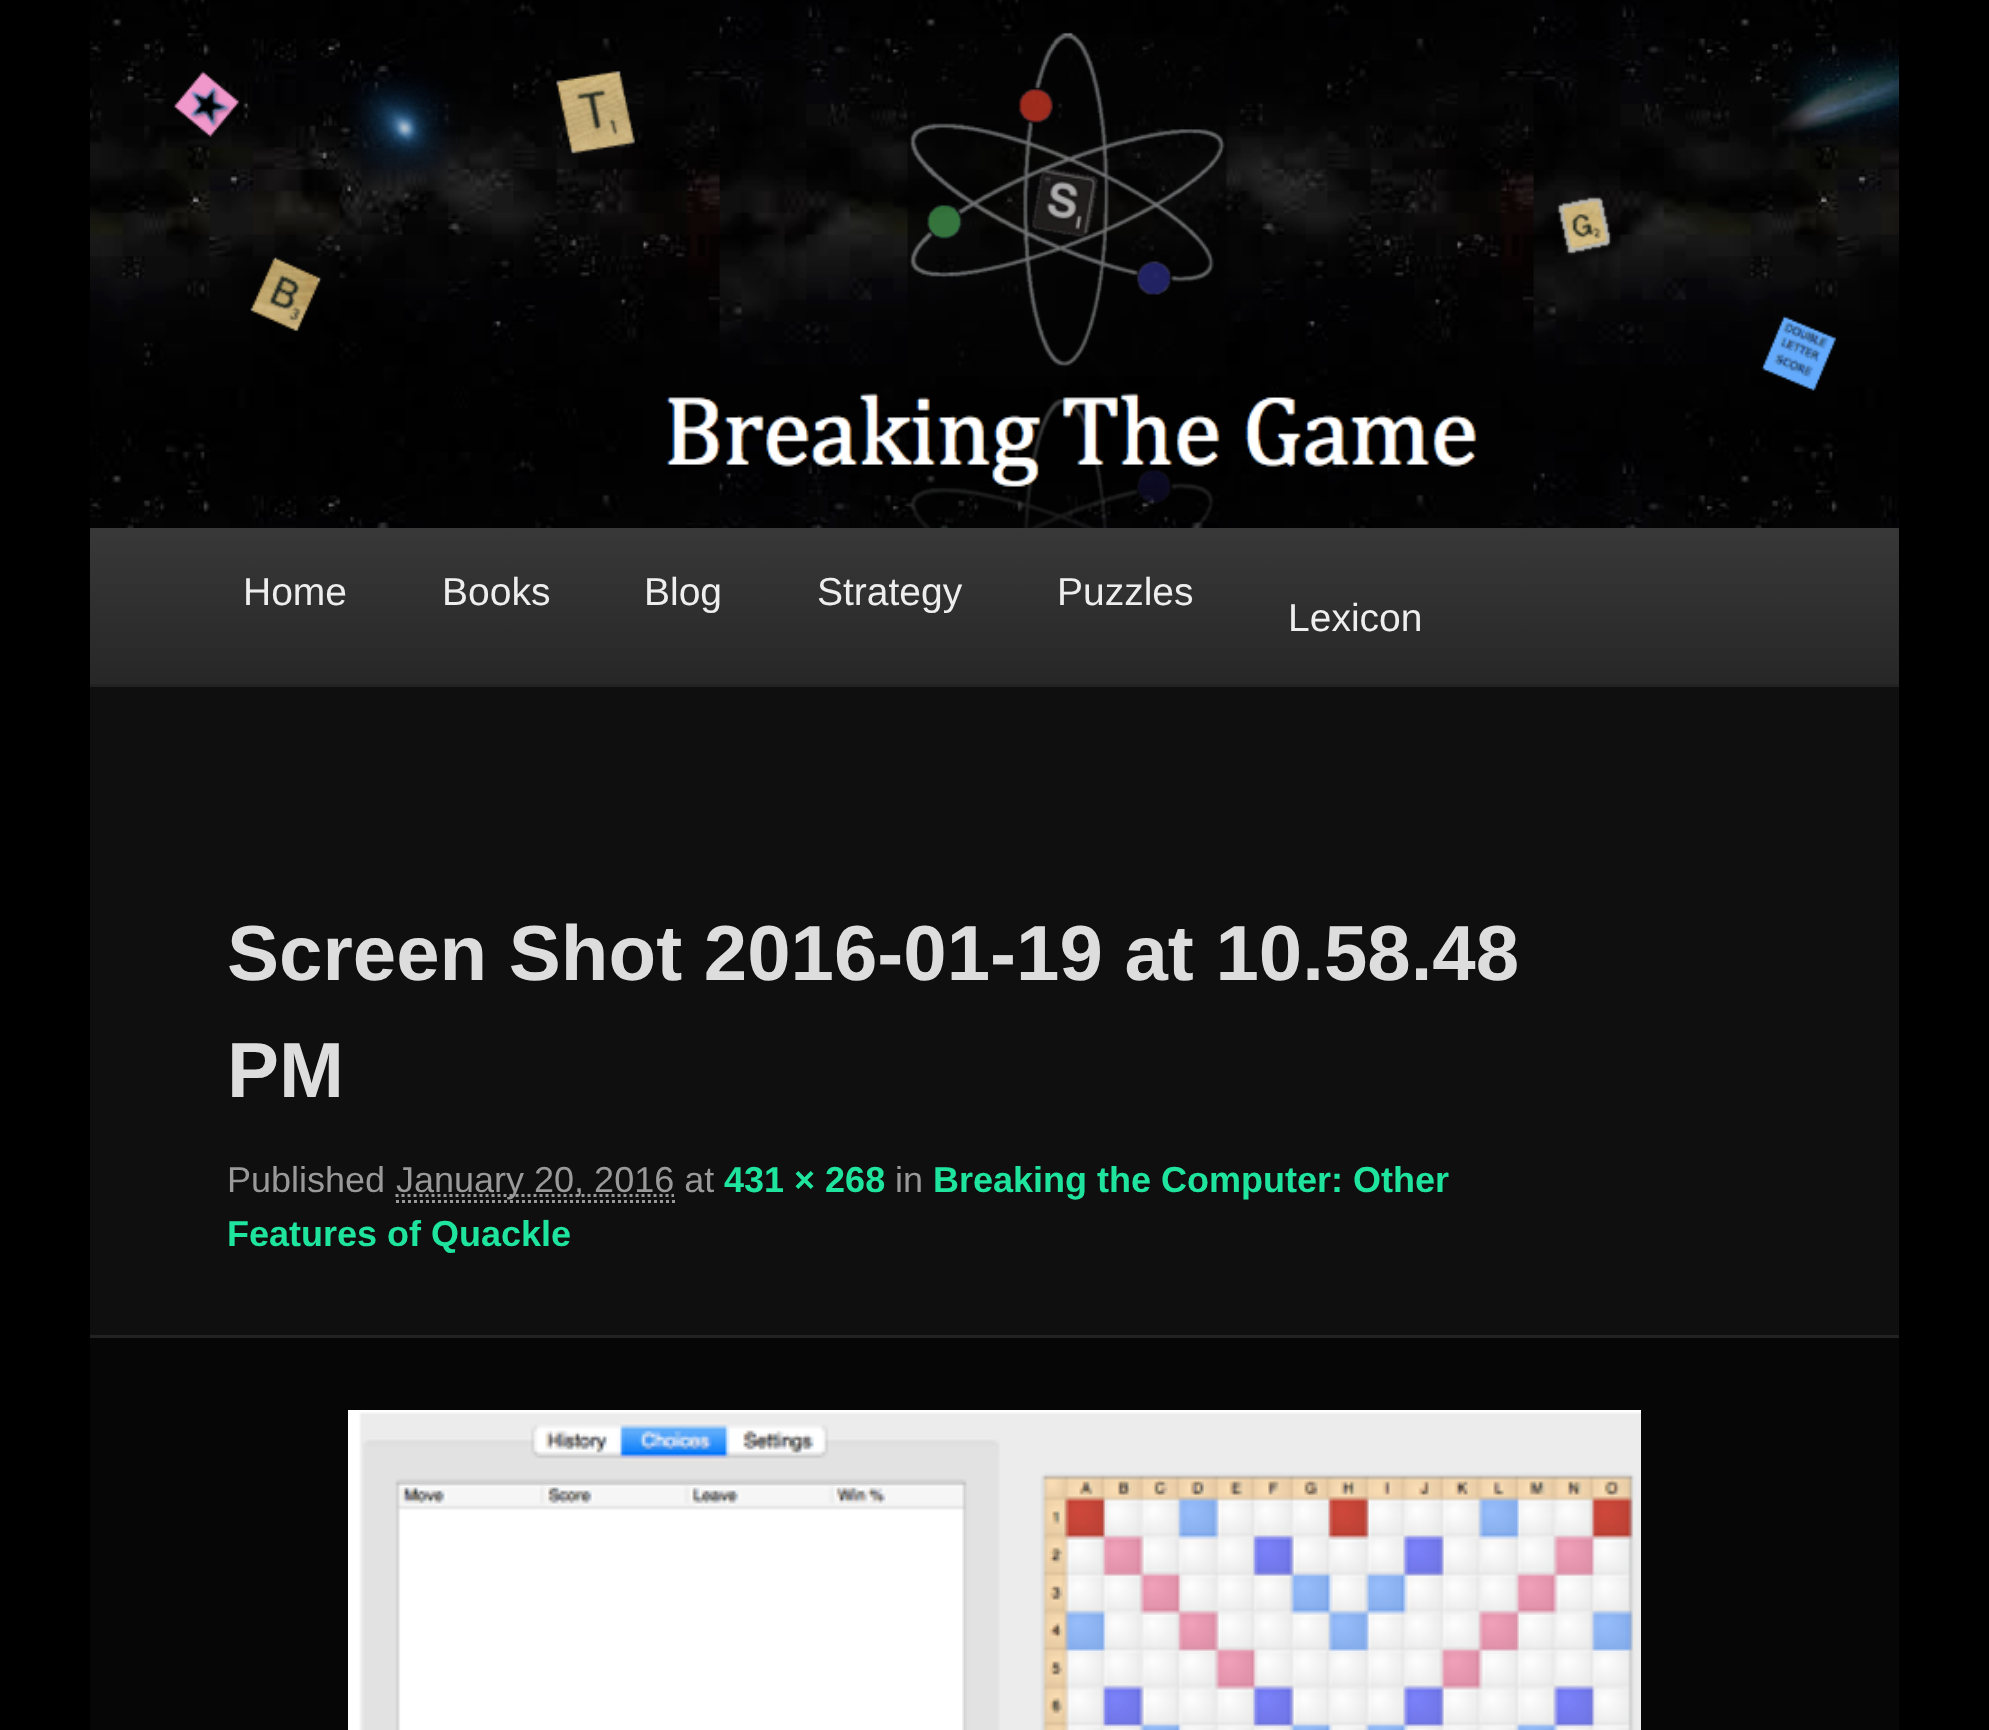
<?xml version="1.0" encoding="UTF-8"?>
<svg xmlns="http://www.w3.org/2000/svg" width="1989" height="1730">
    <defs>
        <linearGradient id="g1" gradientUnits="userSpaceOnUse" x1="995" y1="528" x2="995" y2="684"><stop offset="0" stop-color="#383838"/><stop offset="1" stop-color="#272727"/></linearGradient>
    </defs>
    <rect width="100%" height="100%" fill="#000000"/>
    <rect x="90" y="687" width="1809" height="648" fill="#0F0F0F"/>
    <image x="90" y="0" width="1809" height="528" href="img_01.png"/>
    <rect x="90" y="528" width="1809" height="156" fill="url(#g1)"/>
    <rect x="90" y="684" width="1809" height="3" fill="#222222"/>
    <text x="243" y="605" font-family="Liberation Sans" font-size="39" fill="#EEEEEE">Home</text>
    <text x="442" y="605" font-family="Liberation Sans" font-size="39" fill="#EEEEEE">Books</text>
    <text x="644" y="605" font-family="Liberation Sans" font-size="39" fill="#EEEEEE">Blog</text>
    <text x="817" y="605" font-family="Liberation Sans" font-size="39" fill="#EEEEEE">Strategy</text>
    <text x="1057" y="605" font-family="Liberation Sans" font-size="39" fill="#EEEEEE">Puzzles</text>
    <text x="1288" y="631" font-family="Liberation Sans" font-size="39" fill="#EEEEEE">Lexicon</text>
    <text font-family="Liberation Sans" font-size="78" font-weight="700" fill="#DDDDDD">
        <tspan x="227" y="980">Screen Shot 2016-01-19 at 10.58.48</tspan>
        <tspan x="227" y="1097">PM</tspan>
    </text>
    <text x="227" y="1192" font-family="Liberation Sans" font-size="36" fill="#999999">Published</text>
    <path d="M 395.5 1195.5 H 674" fill="none" stroke="#999999" stroke-width="3" stroke-dasharray="3 3"/>
    <text x="396" y="1192" font-family="Liberation Sans" font-size="36" fill="#999999">January 20, 2016 at</text>
    <path d="M 396 1201.5 H 675" fill="none" stroke="#999999" stroke-width="3" stroke-dasharray="3 3"/>
    <text x="724" y="1192" font-family="Liberation Sans" font-size="36" font-weight="700" fill="#1FE49E">431 × 268</text>
    <text x="895" y="1192" font-family="Liberation Sans" font-size="36" fill="#999999">in</text>
    <text x="933" y="1192" font-family="Liberation Sans" font-size="36" font-weight="700" fill="#1FE49E">Breaking the Computer: Other</text>
    <text x="227" y="1246" font-family="Liberation Sans" font-size="36" font-weight="700" fill="#1FE49E">Features of Quackle</text>
    <rect x="90" y="1338" width="1809" height="392" fill="#060606"/>
    <rect x="90" y="1335" width="1809" height="3" fill="#222222"/>
    <image x="348" y="1410" width="1293" height="320" href="img_02.png"/>
</svg>
